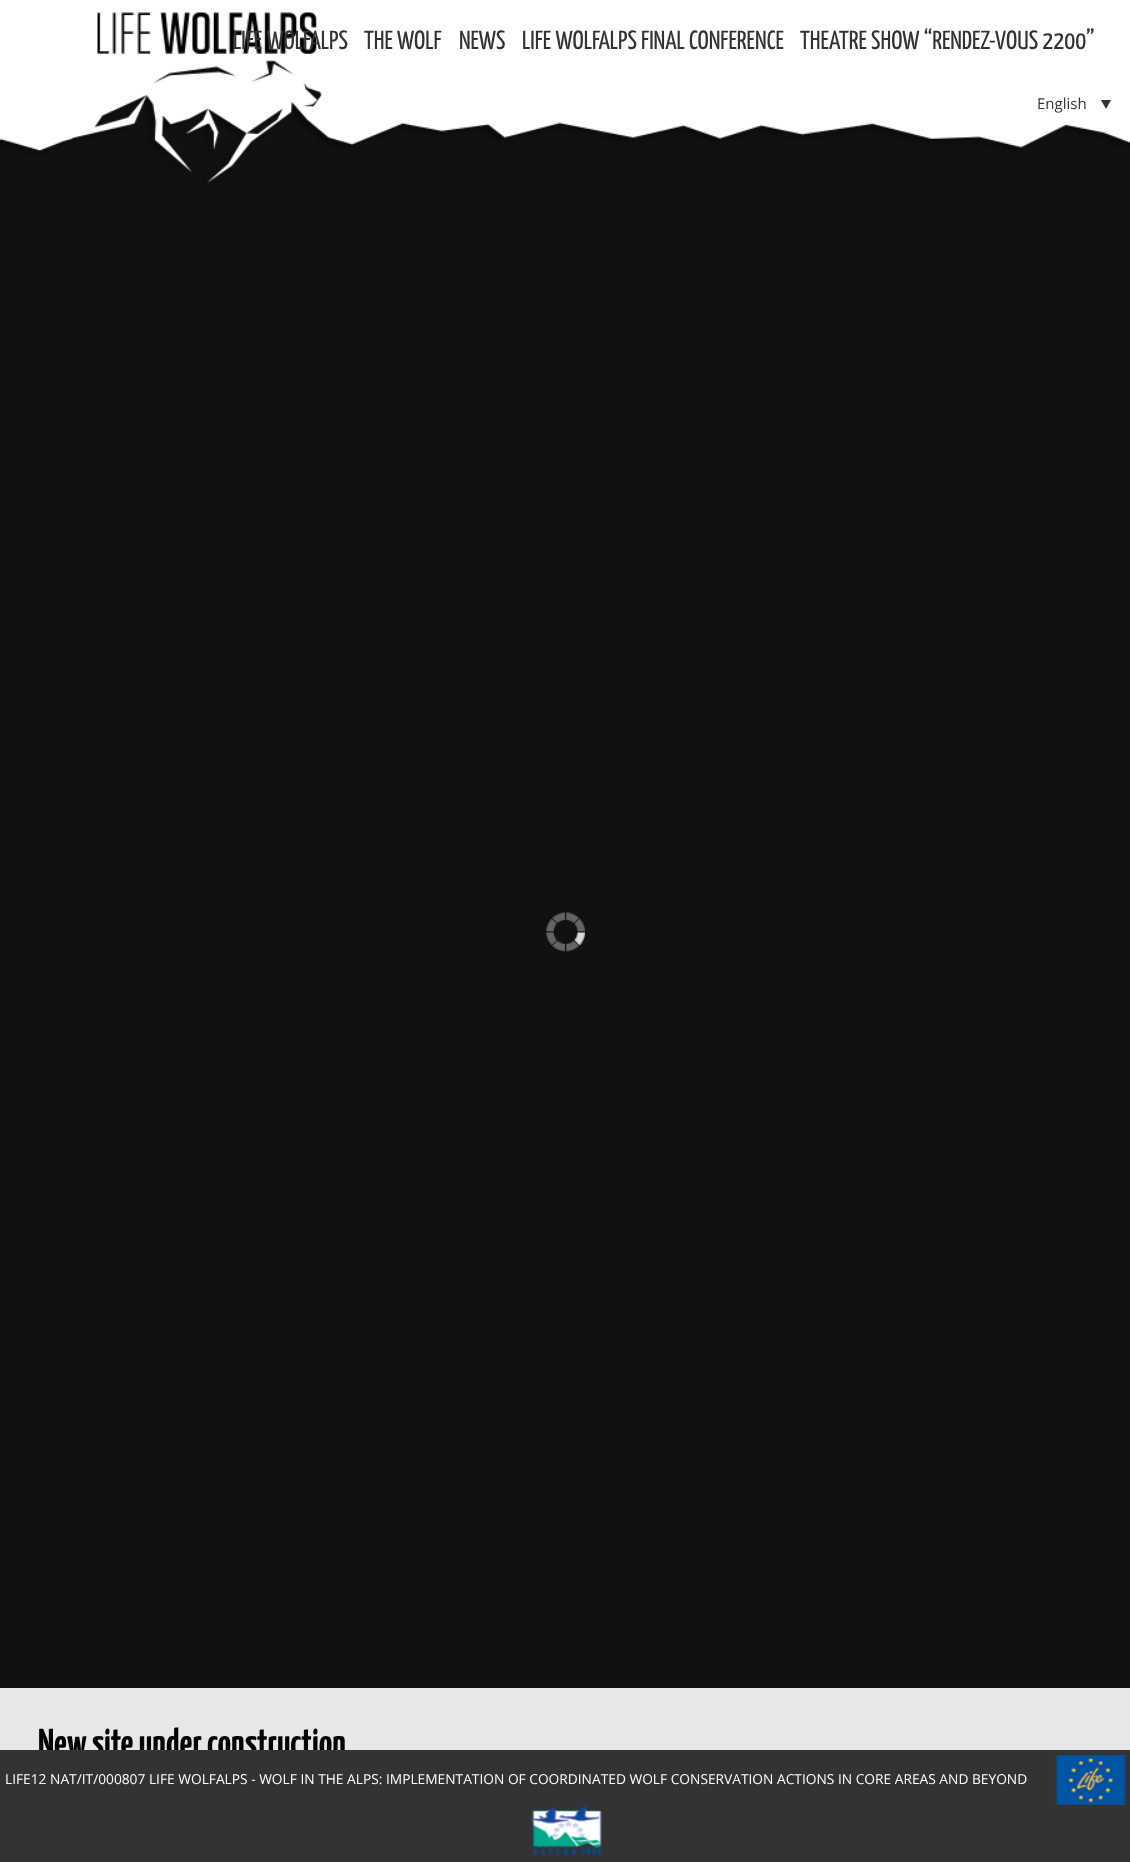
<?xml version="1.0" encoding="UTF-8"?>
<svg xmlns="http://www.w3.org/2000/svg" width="1130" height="1862">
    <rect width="100%" height="100%" fill="#111111"/>
    <image x="0" y="0" width="1130" height="183" href="img_01.png"/>
    <image x="97" y="12" width="220" height="42" href="img_02.png"/>
    <text x="233" y="49" font-family="Yanone Kaffeesatz" font-size="26.25" fill="#333333">LIFE WOLFALPS</text>
    <text x="364" y="49" font-family="Yanone Kaffeesatz" font-size="26.25" fill="#333333">THE WOLF</text>
    <text x="459" y="49" font-family="Yanone Kaffeesatz" font-size="26.25" fill="#333333">NEWS</text>
    <text x="522" y="49" font-family="Yanone Kaffeesatz" font-size="26.25" fill="#333333">LIFE WOLFALPS FINAL CONFERENCE</text>
    <text x="800" y="49" font-family="Yanone Kaffeesatz" font-size="26.25" fill="#333333">THEATRE SHOW “RENDEZ-VOUS 2200”</text>
    <text x="1037" y="109" font-family="Open Sans" font-size="15" fill="#333333">English</text>
    <path d="M 1101 100 H 1111 L 1106 109 Z" fill="#333333"/>
    <image x="546" y="912" width="39" height="40" href="img_03.png"/>
    <rect x="0" y="1688" width="1130" height="62" fill="#E7E7E7"/>
    <text x="38" y="1755" font-family="Yanone Kaffeesatz" font-size="37.5" font-weight="700" fill="#000000">New site under construction</text>
    <rect x="0" y="1750" width="1130" height="112" fill="#333333"/>
    <text x="5" y="1784" font-family="Open Sans" font-size="13.75" fill="#FFFFFF">LIFE12 NAT/IT/000807 LIFE WOLFALPS - WOLF IN THE ALPS: IMPLEMENTATION OF COORDINATED WOLF CONSERVATION ACTIONS IN CORE AREAS AND BEYOND</text>
    <image x="1055" y="1755" width="71" height="50" href="img_04.png"/>
    <image x="529" y="1805" width="73" height="50" href="img_05.png"/>
</svg>
